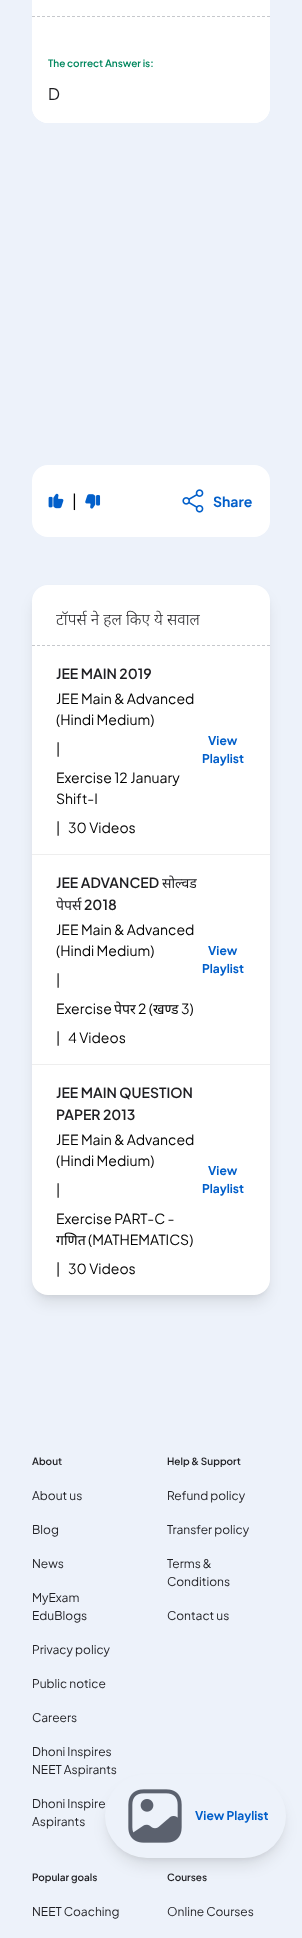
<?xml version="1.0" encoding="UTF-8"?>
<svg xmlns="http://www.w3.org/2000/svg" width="302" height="1938">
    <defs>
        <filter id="blur1" x="-50%" y="-200%" width="200%" height="500%"><feGaussianBlur stdDeviation="3"/></filter>
        <filter id="blur2" x="-50%" y="-200%" width="200%" height="500%"><feGaussianBlur stdDeviation="7.5"/></filter>
    </defs>
    <rect width="100%" height="100%" fill="#EDF2FA"/>
    <rect x="32" y="-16" width="238" height="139" rx="16" fill="#FFFFFF"/>
    <path d="M 32 16.5 H 270" fill="none" stroke="#C6C8CC" stroke-dasharray="3 2"/>
    <rect x="32" y="33" width="238" height="90" rx="16" fill="#FFFFFF"/>
    <text x="48" y="67" font-family="Plus Jakarta Sans" font-size="10" font-weight="600" fill="#00875E">The correct Answer is:</text>
    <text x="48" y="100" font-family="Plus Jakarta Sans" font-size="16" fill="#1E1E22">D</text>
    <rect x="32" y="465" width="238" height="72" rx="16" fill="#FFFFFF"/>
    <image x="48" y="493" width="16" height="16" href="img_01.png"/>
    <text x="72" y="507" font-family="Plus Jakarta Sans" font-size="16" fill="#000000">|</text>
    <image x="85" y="494" width="16" height="15" href="img_02.png"/>
    <image x="182" y="489" width="22" height="24" href="img_03.png"/>
    <text x="213" y="507" font-family="Plus Jakarta Sans" font-size="14" font-weight="700" fill="#025FCA">Share</text>
    <rect x="36" y="593" width="230" height="702" rx="12" fill="#000000" fill-opacity="0.1" filter="url(#blur1)"/>
    <rect x="35" y="598" width="232" height="704" rx="13" fill="#000000" fill-opacity="0.1" filter="url(#blur2)"/>
    <rect x="32" y="585" width="238" height="710" rx="16" fill="#FFFFFF"/>
    <path d="M 32 645.5 H 270" fill="none" stroke="#C6C8CC" stroke-dasharray="3 2"/>
    <text x="56" y="625" font-family="Noto Sans" font-size="16" font-weight="300" fill="#1E1E22">टॉपर्स ने हल किए ये सवाल</text>
    <text x="56" y="679" font-family="Plus Jakarta Sans" font-size="14" font-weight="600" fill="#1E1E22">JEE MAIN 2019</text>
    <text font-family="Plus Jakarta Sans" font-size="14" fill="#000000">
        <tspan x="56" y="704">JEE Main &amp; Advanced</tspan>
        <tspan x="56" y="725">(Hindi Medium)</tspan>
    </text>
    <text x="56" y="754" font-family="Plus Jakarta Sans" font-size="14" fill="#000000">|</text>
    <text font-family="Plus Jakarta Sans" font-size="14" fill="#000000">
        <tspan x="56" y="783">Exercise 12 January</tspan>
        <tspan x="56" y="804">Shift-I</tspan>
    </text>
    <text x="56" y="833" font-family="Plus Jakarta Sans" font-size="14" fill="#000000">|</text>
    <text x="68" y="833" font-family="Plus Jakarta Sans" font-size="14" fill="#000000">30 Videos</text>
    <text x="208" y="745" font-family="Plus Jakarta Sans" font-size="12" font-weight="700" fill="#025FCA">View</text>
    <text x="202" y="763" font-family="Plus Jakarta Sans" font-size="12" font-weight="700" fill="#025FCA">Playlist</text>
    <rect x="32" y="854" width="238" height="1" fill="#EEEEEE"/>
    <text x="56" y="888" font-family="Plus Jakarta Sans" font-size="14" font-weight="600" fill="#1E1E22">JEE ADVANCED</text>
    <text x="162" y="888" font-family="Noto Sans" font-size="14" fill="#1E1E22">सोल्वड</text>
    <text x="56" y="910" font-family="Noto Sans" font-size="14" fill="#1E1E22">पेपर्स</text>
    <text x="84" y="910" font-family="Plus Jakarta Sans" font-size="14" font-weight="600" fill="#1E1E22">2018</text>
    <text font-family="Plus Jakarta Sans" font-size="14" fill="#000000">
        <tspan x="56" y="935">JEE Main &amp; Advanced</tspan>
        <tspan x="56" y="956">(Hindi Medium)</tspan>
    </text>
    <text x="56" y="985" font-family="Plus Jakarta Sans" font-size="14" fill="#000000">|</text>
    <text x="56" y="1014" font-family="Plus Jakarta Sans" font-size="14" fill="#000000">Exercise</text>
    <text x="114" y="1014" font-family="Noto Sans" font-size="14" fill="#000000">पेपर</text>
    <text x="138" y="1014" font-family="Plus Jakarta Sans" font-size="14" fill="#000000">2 (</text>
    <text x="153" y="1014" font-family="Noto Sans" font-size="14" fill="#000000">खण्ड</text>
    <text x="181" y="1014" font-family="Plus Jakarta Sans" font-size="14" fill="#000000">3)</text>
    <text x="56" y="1043" font-family="Plus Jakarta Sans" font-size="14" fill="#000000">|</text>
    <text x="68" y="1043" font-family="Plus Jakarta Sans" font-size="14" fill="#000000">4 Videos</text>
    <text x="208" y="955" font-family="Plus Jakarta Sans" font-size="12" font-weight="700" fill="#025FCA">View</text>
    <text x="202" y="973" font-family="Plus Jakarta Sans" font-size="12" font-weight="700" fill="#025FCA">Playlist</text>
    <rect x="32" y="1064" width="238" height="1" fill="#EEEEEE"/>
    <text font-family="Plus Jakarta Sans" font-size="14" font-weight="600" fill="#1E1E22">
        <tspan x="56" y="1098">JEE MAIN QUESTION</tspan>
        <tspan x="56" y="1120">PAPER 2013</tspan>
    </text>
    <text font-family="Plus Jakarta Sans" font-size="14" fill="#000000">
        <tspan x="56" y="1145">JEE Main &amp; Advanced</tspan>
        <tspan x="56" y="1166">(Hindi Medium)</tspan>
    </text>
    <text x="56" y="1195" font-family="Plus Jakarta Sans" font-size="14" fill="#000000">|</text>
    <text x="56" y="1224" font-family="Plus Jakarta Sans" font-size="14" fill="#000000">Exercise PART-C -</text>
    <text x="56" y="1245" font-family="Noto Sans" font-size="14" fill="#000000">गणित</text>
    <text x="88" y="1245" font-family="Plus Jakarta Sans" font-size="14" fill="#000000">(MATHEMATICS)</text>
    <text x="56" y="1274" font-family="Plus Jakarta Sans" font-size="14" fill="#000000">|</text>
    <text x="68" y="1274" font-family="Plus Jakarta Sans" font-size="14" fill="#000000">30 Videos</text>
    <text x="208" y="1175" font-family="Plus Jakarta Sans" font-size="12" font-weight="700" fill="#025FCA">View</text>
    <text x="202" y="1193" font-family="Plus Jakarta Sans" font-size="12" font-weight="700" fill="#025FCA">Playlist</text>
    <rect x="109" y="1782" width="173" height="76" rx="38" fill="#000000" fill-opacity="0.1" filter="url(#blur1)"/>
    <rect x="108" y="1787" width="175" height="78" rx="39" fill="#000000" fill-opacity="0.1" filter="url(#blur2)"/>
    <text x="32" y="1774" font-family="Plus Jakarta Sans" font-size="12" fill="#1E1E22">NEET Aspirants</text>
    <rect x="105" y="1774" width="181" height="84" rx="42" fill="#EDF2FA"/>
    <image x="128" y="1789" width="54" height="54" href="img_04.png"/>
    <text x="195" y="1820" font-family="Plus Jakarta Sans" font-size="12" font-weight="700" fill="#025FCA">View Playlist</text>
    <text x="32" y="1465" font-family="Plus Jakarta Sans" font-size="10" font-weight="600" fill="#1E1E22">About</text>
    <text x="32" y="1500" font-family="Plus Jakarta Sans" font-size="12" fill="#1E1E22">About us</text>
    <text x="32" y="1534" font-family="Plus Jakarta Sans" font-size="12" fill="#1E1E22">Blog</text>
    <text x="32" y="1568" font-family="Plus Jakarta Sans" font-size="12" fill="#1E1E22">News</text>
    <text font-family="Plus Jakarta Sans" font-size="12" fill="#1E1E22">
        <tspan x="32" y="1602">MyExam</tspan>
        <tspan x="32" y="1620">EduBlogs</tspan>
    </text>
    <text x="32" y="1654" font-family="Plus Jakarta Sans" font-size="12" fill="#1E1E22">Privacy policy</text>
    <text x="32" y="1688" font-family="Plus Jakarta Sans" font-size="12" fill="#1E1E22">Public notice</text>
    <text x="32" y="1722" font-family="Plus Jakarta Sans" font-size="12" fill="#1E1E22">Careers</text>
    <text x="32" y="1756" font-family="Plus Jakarta Sans" font-size="12" fill="#1E1E22">Dhoni Inspires</text>
    <text font-family="Plus Jakarta Sans" font-size="12" fill="#1E1E22">
        <tspan x="32" y="1808">Dhoni Inspire</tspan>
        <tspan x="32" y="1826">Aspirants</tspan>
    </text>
    <text x="167" y="1465" font-family="Plus Jakarta Sans" font-size="10" font-weight="600" fill="#1E1E22">Help &amp; Support</text>
    <text x="167" y="1500" font-family="Plus Jakarta Sans" font-size="12" fill="#1E1E22">Refund policy</text>
    <text x="167" y="1534" font-family="Plus Jakarta Sans" font-size="12" fill="#1E1E22">Transfer policy</text>
    <text font-family="Plus Jakarta Sans" font-size="12" fill="#1E1E22">
        <tspan x="167" y="1568">Terms &amp;</tspan>
        <tspan x="167" y="1586">Conditions</tspan>
    </text>
    <text x="167" y="1620" font-family="Plus Jakarta Sans" font-size="12" fill="#1E1E22">Contact us</text>
    <text x="32" y="1881" font-family="Plus Jakarta Sans" font-size="10" font-weight="600" fill="#1E1E22">Popular goals</text>
    <text x="32" y="1916" font-family="Plus Jakarta Sans" font-size="12" fill="#1E1E22">NEET Coaching</text>
    <text x="167" y="1881" font-family="Plus Jakarta Sans" font-size="10" font-weight="600" fill="#1E1E22">Courses</text>
    <text x="167" y="1916" font-family="Plus Jakarta Sans" font-size="12" fill="#1E1E22">Online Courses</text>
</svg>
